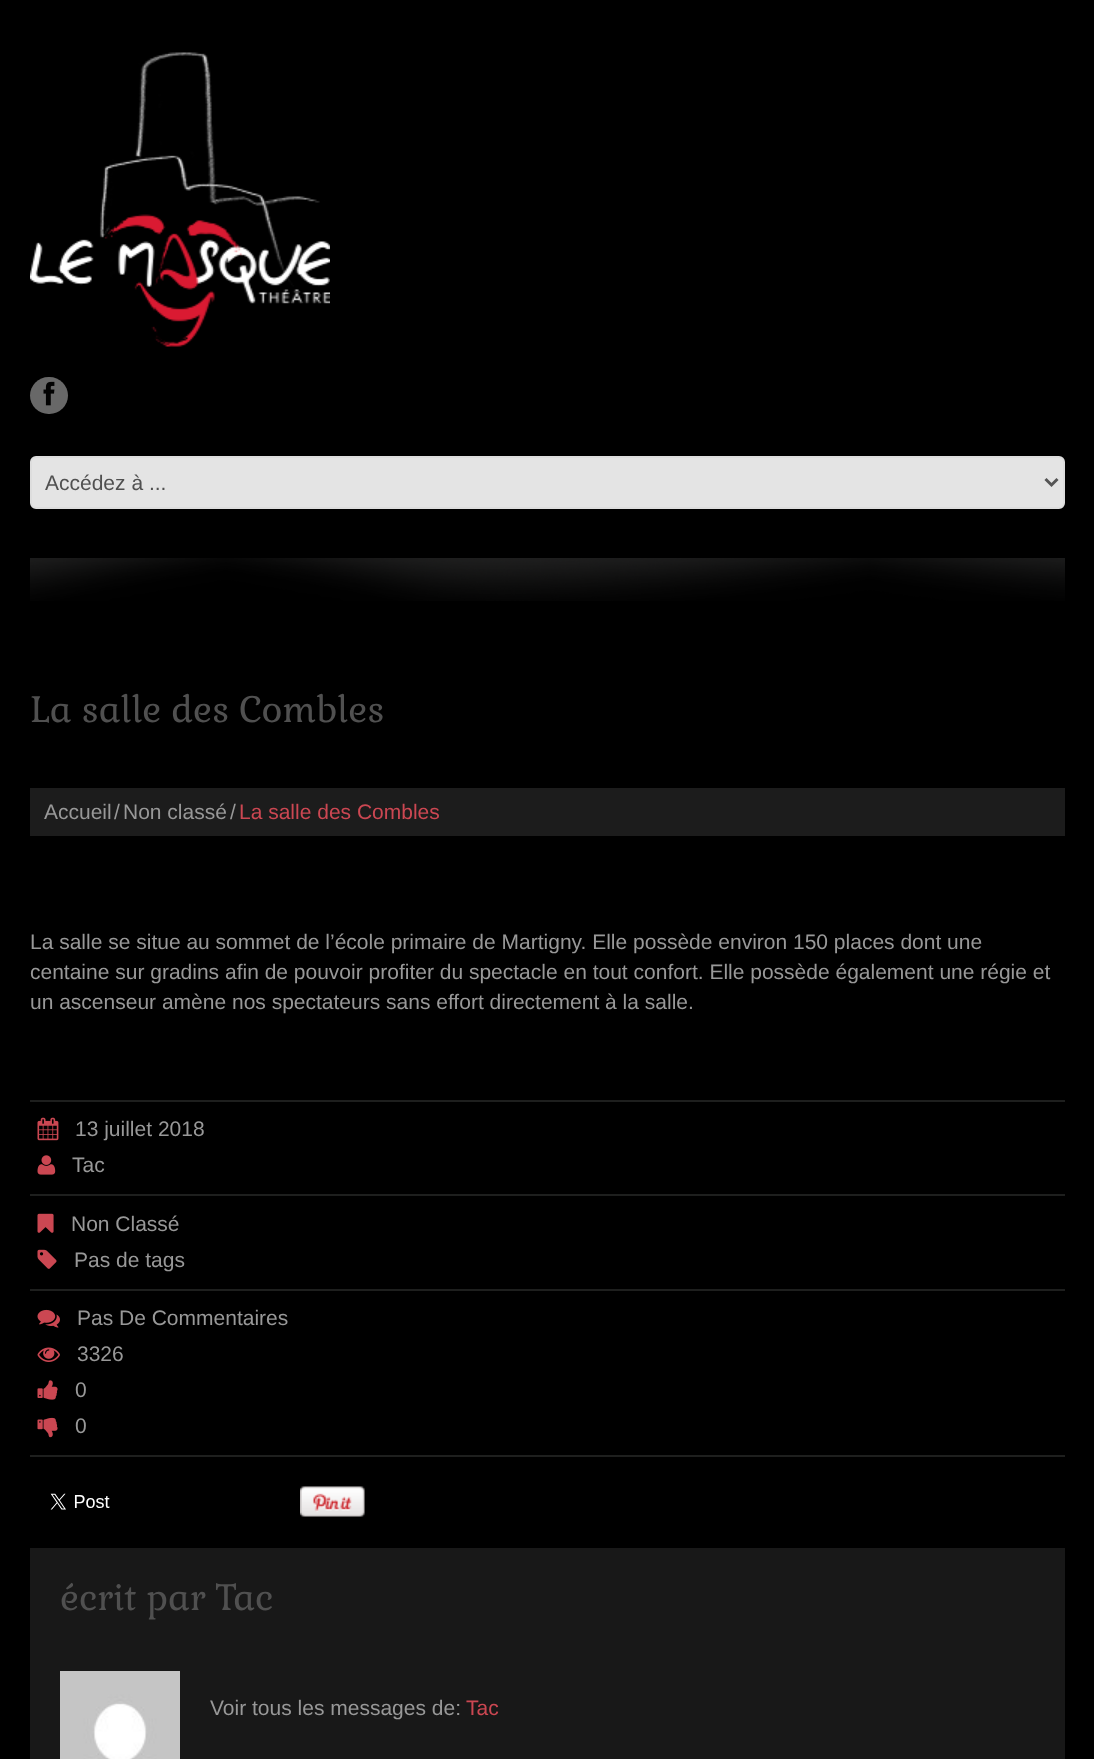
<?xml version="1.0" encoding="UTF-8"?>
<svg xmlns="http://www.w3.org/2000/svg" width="1094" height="1759">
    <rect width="100%" height="100%" fill="#000000"/>
    <image x="30" y="52" width="300" height="295" href="img_01.png"/>
    <rect x="30" y="377" width="38" height="37" rx="18.5" fill="#686868"/>
    <image x="43" y="381" width="12" height="25" href="img_02.png"/>
    <rect x="31" y="457" width="1033" height="51" rx="5" fill="#E4E4E4" stroke="#DDDDDD" stroke-width="2"/>
    <path d="M 1045.5 479 L 1051.5 485 L 1057.5 479" fill="none" stroke="#555555" stroke-width="3"/>
    <text x="45" y="490" font-family="Liberation Sans" font-size="21" fill="#505050">Accédez à ...</text>
    <image x="30" y="558" width="1035" height="43" href="img_03.png"/>
    <text x="30" y="722" font-family="Gabriela" font-size="36" fill="#505050">La salle des Combles</text>
    <rect x="30" y="788" width="1035" height="48" fill="#1C1C1C"/>
    <text x="44" y="819" font-family="Liberation Sans" font-size="21" fill="#989898">Accueil</text>
    <text x="114" y="819" font-family="Liberation Sans" font-size="21" fill="#989898">/</text>
    <text x="123" y="819" font-family="Liberation Sans" font-size="21" fill="#989898">Non classé</text>
    <text x="230" y="819" font-family="Liberation Sans" font-size="21" fill="#989898">/</text>
    <text x="239" y="819" font-family="Liberation Sans" font-size="21" fill="#CB4752">La salle des Combles</text>
    <text font-family="Liberation Sans" font-size="21" fill="#989898">
        <tspan x="30" y="949">La salle se situe au sommet de l’école primaire de Martigny. Elle possède environ 150 places dont une</tspan>
        <tspan x="30" y="979">centaine sur gradins afin de pouvoir profiter du spectacle en tout confort. Elle possède également une régie et</tspan>
        <tspan x="30" y="1009">un ascenseur amène nos spectateurs sans effort directement à la salle.</tspan>
    </text>
    <rect x="30" y="1100" width="1035" height="2" fill="#1E1F1E"/>
    <rect x="30" y="1455" width="1035" height="2" fill="#1E1F1E"/>
    <image x="37" y="1117" width="22" height="24" href="img_04.png"/>
    <text x="75" y="1136" font-family="Liberation Sans" font-size="21" fill="#989898">13 juillet 2018</text>
    <image x="37" y="1155" width="19" height="20" href="img_05.png"/>
    <text x="72" y="1172" font-family="Liberation Sans" font-size="21" fill="#989898">Tac</text>
    <rect x="30" y="1194" width="1035" height="2" fill="#1E1F1E"/>
    <image x="37" y="1213" width="17" height="20" href="img_06.png"/>
    <text x="71" y="1231" font-family="Liberation Sans" font-size="21" fill="#989898">Non Classé</text>
    <image x="37" y="1249" width="20" height="20" href="img_07.png"/>
    <text x="74" y="1267" font-family="Liberation Sans" font-size="21" fill="#989898">Pas de tags</text>
    <rect x="30" y="1289" width="1035" height="2" fill="#1E1F1E"/>
    <image x="37" y="1309" width="23" height="19" href="img_08.png"/>
    <text x="77" y="1325" font-family="Liberation Sans" font-size="21" fill="#989898">Pas De Commentaires</text>
    <image x="37" y="1347" width="23" height="15" href="img_09.png"/>
    <text x="77" y="1361" font-family="Liberation Sans" font-size="21" fill="#989898">3326</text>
    <image x="37" y="1380" width="21" height="20" href="img_10.png"/>
    <text x="75" y="1397" font-family="Liberation Sans" font-size="21" fill="#989898">0</text>
    <image x="37" y="1417" width="21" height="21" href="img_11.png"/>
    <text x="75" y="1433" font-family="Liberation Sans" font-size="21" fill="#989898">0</text>
    <image x="50" y="1493" width="60" height="17" href="img_12.png"/>
    <image x="300" y="1486" width="65" height="31" href="img_13.png"/>
    <rect x="30" y="1548" width="1035" height="211" fill="#181818"/>
    <text x="60" y="1610" font-family="Gabriela" font-size="36" fill="#505050">écrit par Tac</text>
    <image x="60" y="1671" width="120" height="88" href="img_14.png"/>
    <text x="210" y="1715" font-family="Liberation Sans" font-size="21" fill="#989898">Voir tous les messages de:</text>
    <text x="466" y="1715" font-family="Liberation Sans" font-size="21" fill="#CB4752">Tac</text>
</svg>
